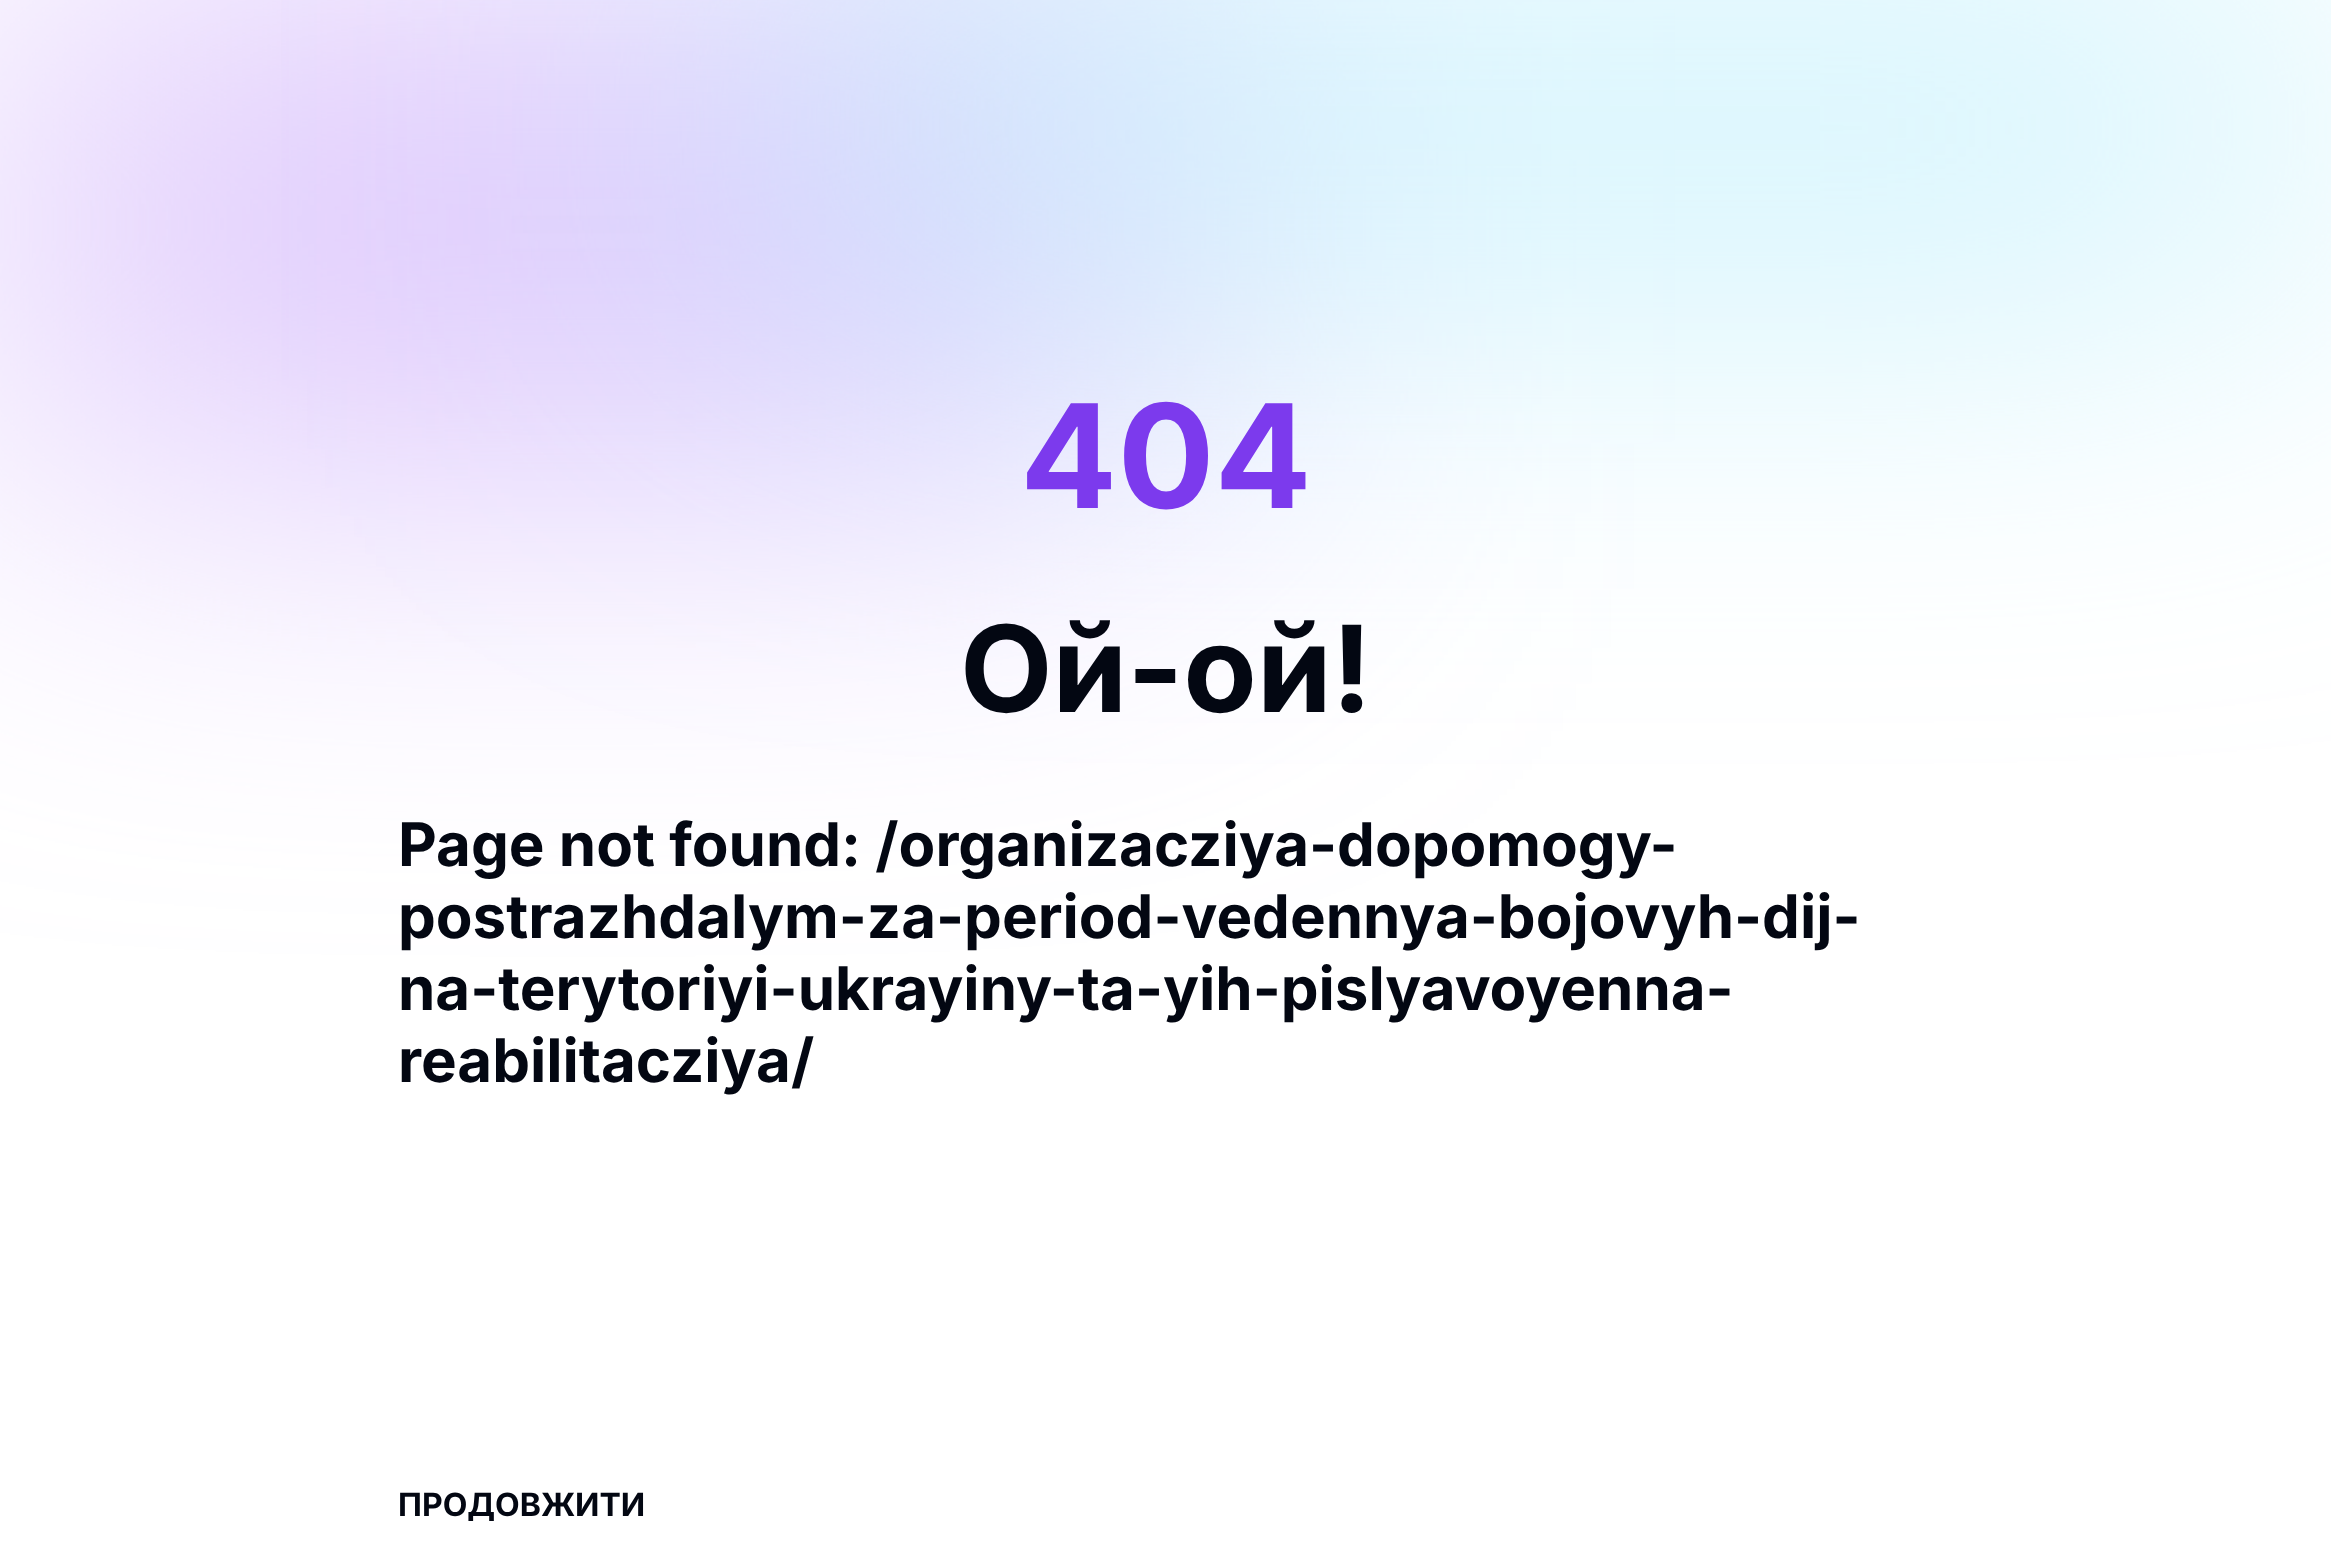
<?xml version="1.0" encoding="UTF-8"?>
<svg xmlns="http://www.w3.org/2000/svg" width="2331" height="1545">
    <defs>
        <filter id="blur1" x="-50%" y="-200%" width="200%" height="500%"><feGaussianBlur stdDeviation="212"/></filter>
    </defs>
    <rect width="100%" height="100%" fill="#FFFFFF"/>
    <rect x="0" y="0" width="1166" height="448" fill="#D9C0FC" filter="url(#blur1)"/>
    <rect x="750" y="0" width="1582" height="256" fill="#BAEEFC" filter="url(#blur1)"/>
    <text x="1020" y="508" font-family="Inter" font-size="144" font-weight="700" fill="#7C3AED">404</text>
    <text x="960" y="712" font-family="Inter" font-size="120" font-weight="700" fill="#030712">Ой-ой!</text>
    <text font-family="Inter" font-size="60" font-weight="700" fill="#030712">
        <tspan x="398" y="866">Page not found: /organizacziya-dopomogy-</tspan>
        <tspan x="398" y="938">postrazhdalym-za-period-vedennya-bojovyh-dij-</tspan>
        <tspan x="398" y="1010">na-terytoriyi-ukrayiny-ta-yih-pislyavoyenna-</tspan>
        <tspan x="398" y="1082">reabilitacziya/</tspan>
    </text>
    <text x="398" y="1516" font-family="Inter" font-size="32" font-weight="700" fill="#030712">ПРОДОВЖИТИ</text>
</svg>
